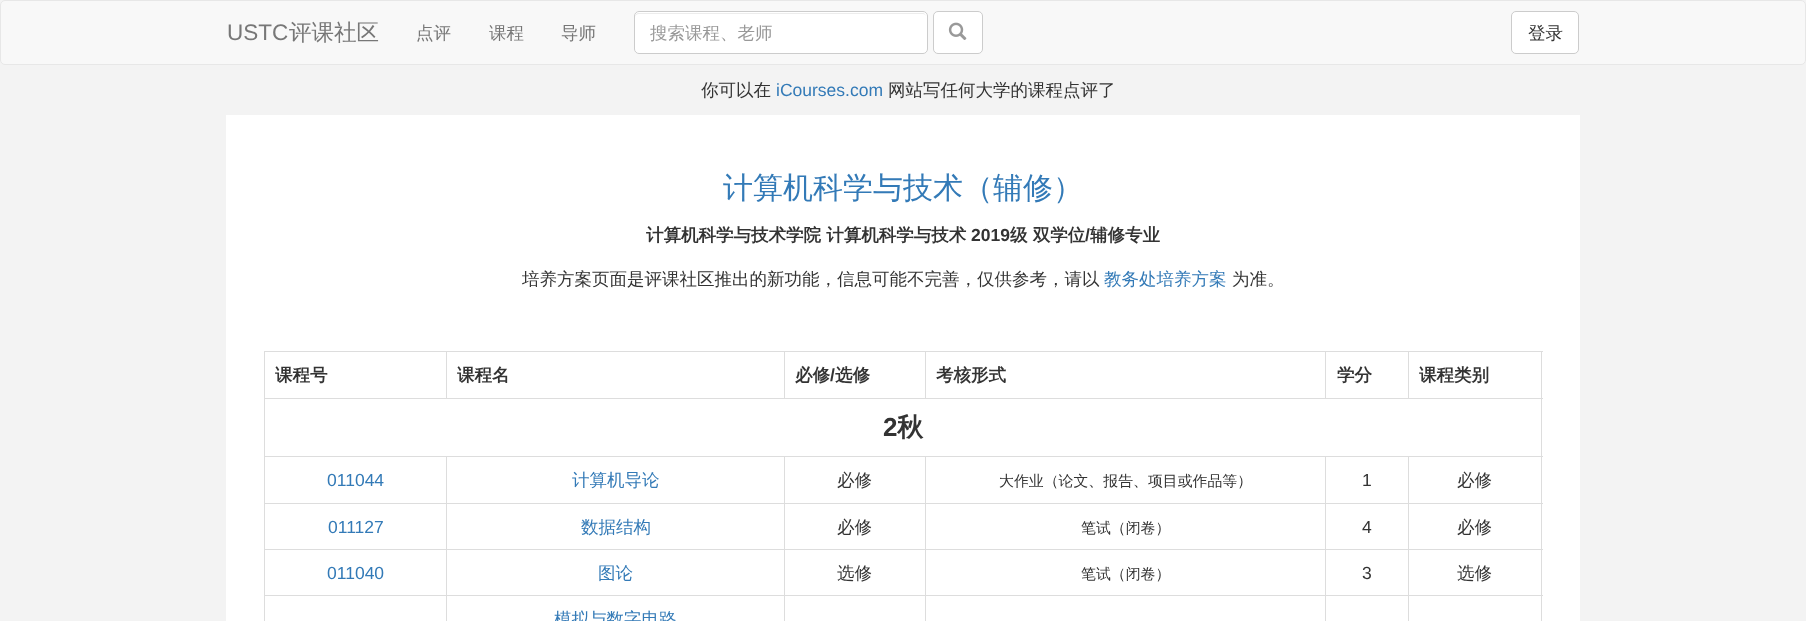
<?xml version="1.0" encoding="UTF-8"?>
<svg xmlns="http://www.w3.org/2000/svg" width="1806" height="621">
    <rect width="100%" height="100%" fill="#F3F3F3"/>
    <rect x="0.5" y="0.5" width="1805" height="64" rx="4.5" fill="#F8F8F8" stroke="#E7E7E7"/>
    <text x="227" y="40" font-family="Liberation Sans" font-size="22.5" fill="#777777">USTC</text>
    <text x="289" y="40" font-family="WenQuanYi Zen Hei" font-size="22.5" font-weight="500" fill="#777777">评课社区</text>
    <text x="416" y="39" font-family="WenQuanYi Zen Hei" font-size="17.5" font-weight="500" fill="#777777">点评</text>
    <text x="489" y="39" font-family="WenQuanYi Zen Hei" font-size="17.5" font-weight="500" fill="#777777">课程</text>
    <text x="561" y="39" font-family="WenQuanYi Zen Hei" font-size="17.5" font-weight="500" fill="#777777">导师</text>
    <rect x="634" y="11" width="294" height="43" rx="5" fill="#FFFFFF"/>
    <path d="M 639 14 H 922 C 925 14 926 15 926 18 C 926 15 925 13 922 13 H 639 C 636 13 635 15 635 18 C 635 15 637 14 639 14 Z" fill="#ECECEC"/>
    <rect x="634.5" y="11.5" width="293" height="42" rx="4.5" fill="none" stroke="#CCCCCC"/>
    <text x="650" y="39" font-family="WenQuanYi Zen Hei" font-size="17.5" font-weight="500" fill="#999999">搜索课程、老师</text>
    <rect x="933.5" y="11.5" width="49" height="42" rx="4.5" fill="#FFFFFF" stroke="#CCCCCC"/>
    <image x="948" y="22" width="19" height="18" href="img_01.png"/>
    <rect x="1511.5" y="11.5" width="67" height="42" rx="4.5" fill="#FFFFFF" stroke="#CCCCCC"/>
    <text x="1528" y="39" font-family="WenQuanYi Zen Hei" font-size="17.5" font-weight="500" fill="#333333">登录</text>
    <text x="701" y="96" font-family="WenQuanYi Zen Hei" font-size="17.5" font-weight="500" fill="#333333">你可以在</text>
    <text x="776" y="96" font-family="Liberation Sans" font-size="17.5" fill="#337AB7">iCourses.com</text>
    <text x="888" y="96" font-family="WenQuanYi Zen Hei" font-size="17.5" font-weight="500" fill="#333333">网站写任何大学的课程点评了</text>
    <rect x="226" y="115" width="1354" height="506" fill="#FFFFFF"/>
    <text x="723" y="198" font-family="WenQuanYi Zen Hei" font-size="30" font-weight="500" fill="#337AB7">计算机科学与技术（辅修）</text>
    <text x="646" y="241" font-family="WenQuanYi Zen Hei" font-size="17.5" font-weight="700" fill="#333333">计算机科学与技术学院 计算机科学与技术</text>
    <text x="971" y="241" font-family="Liberation Sans" font-size="17.5" font-weight="700" fill="#333333">2019</text>
    <text x="1010" y="241" font-family="WenQuanYi Zen Hei" font-size="17.5" font-weight="700" fill="#333333">级 双学位</text>
    <text x="1085" y="241" font-family="Liberation Sans" font-size="17.5" font-weight="700" fill="#333333">/</text>
    <text x="1090" y="241" font-family="WenQuanYi Zen Hei" font-size="17.5" font-weight="700" fill="#333333">辅修专业</text>
    <text x="522" y="285" font-family="WenQuanYi Zen Hei" font-size="17.5" font-weight="500" fill="#333333">培养方案页面是评课社区推出的新功能，信息可能不完善，仅供参考，请以</text>
    <text x="1104" y="285" font-family="WenQuanYi Zen Hei" font-size="17.5" font-weight="500" fill="#337AB7">教务处培养方案</text>
    <text x="1232" y="285" font-family="WenQuanYi Zen Hei" font-size="17.5" font-weight="500" fill="#333333">为准。</text>
    <rect x="264" y="351" width="1279" height="1" fill="#DDDDDD"/>
    <rect x="1541" y="351" width="1" height="270" fill="#DDDDDD"/>
    <rect x="264" y="351" width="1" height="270" fill="#DDDDDD"/>
    <text x="275" y="381" font-family="WenQuanYi Zen Hei" font-size="17.5" font-weight="700" fill="#333333">课程号</text>
    <rect x="264" y="398" width="1279" height="1" fill="#DDDDDD"/>
    <rect x="446" y="351" width="1" height="48" fill="#DDDDDD"/>
    <text x="457" y="381" font-family="WenQuanYi Zen Hei" font-size="17.5" font-weight="700" fill="#333333">课程名</text>
    <rect x="784" y="351" width="1" height="48" fill="#DDDDDD"/>
    <text x="795" y="381" font-family="WenQuanYi Zen Hei" font-size="17.5" font-weight="700" fill="#333333">必修</text>
    <text x="830" y="381" font-family="Liberation Sans" font-size="17.5" font-weight="700" fill="#333333">/</text>
    <text x="835" y="381" font-family="WenQuanYi Zen Hei" font-size="17.5" font-weight="700" fill="#333333">选修</text>
    <rect x="925" y="351" width="1" height="48" fill="#DDDDDD"/>
    <text x="936" y="381" font-family="WenQuanYi Zen Hei" font-size="17.5" font-weight="700" fill="#333333">考核形式</text>
    <rect x="1325" y="351" width="1" height="48" fill="#DDDDDD"/>
    <text x="1337" y="381" font-family="WenQuanYi Zen Hei" font-size="17.5" font-weight="700" fill="#333333">学分</text>
    <rect x="1408" y="351" width="1" height="48" fill="#DDDDDD"/>
    <text x="1419" y="381" font-family="WenQuanYi Zen Hei" font-size="17.5" font-weight="700" fill="#333333">课程类别</text>
    <text x="883" y="436" font-family="Liberation Sans" font-size="26" font-weight="700" fill="#333333">2</text>
    <text x="897" y="436" font-family="WenQuanYi Zen Hei" font-size="26" font-weight="700" fill="#333333">秋</text>
    <rect x="1408" y="456" width="135" height="1" fill="#DDDDDD"/>
    <rect x="1408" y="503" width="135" height="1" fill="#DDDDDD"/>
    <rect x="1408" y="549" width="135" height="1" fill="#DDDDDD"/>
    <rect x="1408" y="595" width="135" height="1" fill="#DDDDDD"/>
    <rect x="1408" y="595" width="1" height="26" fill="#DDDDDD"/>
    <rect x="1325" y="595" width="84" height="1" fill="#DDDDDD"/>
    <rect x="1408" y="549" width="1" height="47" fill="#DDDDDD"/>
    <rect x="1325" y="549" width="84" height="1" fill="#DDDDDD"/>
    <rect x="1408" y="503" width="1" height="47" fill="#DDDDDD"/>
    <rect x="1325" y="503" width="84" height="1" fill="#DDDDDD"/>
    <rect x="1408" y="456" width="1" height="48" fill="#DDDDDD"/>
    <rect x="1325" y="456" width="84" height="1" fill="#DDDDDD"/>
    <rect x="1325" y="595" width="1" height="26" fill="#DDDDDD"/>
    <rect x="925" y="595" width="401" height="1" fill="#DDDDDD"/>
    <rect x="1325" y="549" width="1" height="47" fill="#DDDDDD"/>
    <rect x="925" y="549" width="401" height="1" fill="#DDDDDD"/>
    <rect x="1325" y="503" width="1" height="47" fill="#DDDDDD"/>
    <rect x="925" y="503" width="401" height="1" fill="#DDDDDD"/>
    <rect x="1325" y="456" width="1" height="48" fill="#DDDDDD"/>
    <rect x="925" y="456" width="401" height="1" fill="#DDDDDD"/>
    <rect x="925" y="595" width="1" height="26" fill="#DDDDDD"/>
    <rect x="784" y="595" width="142" height="1" fill="#DDDDDD"/>
    <rect x="925" y="549" width="1" height="47" fill="#DDDDDD"/>
    <rect x="784" y="549" width="142" height="1" fill="#DDDDDD"/>
    <rect x="925" y="503" width="1" height="47" fill="#DDDDDD"/>
    <rect x="784" y="503" width="142" height="1" fill="#DDDDDD"/>
    <rect x="925" y="456" width="1" height="48" fill="#DDDDDD"/>
    <rect x="784" y="456" width="142" height="1" fill="#DDDDDD"/>
    <rect x="784" y="595" width="1" height="26" fill="#DDDDDD"/>
    <rect x="446" y="595" width="339" height="1" fill="#DDDDDD"/>
    <rect x="784" y="549" width="1" height="47" fill="#DDDDDD"/>
    <rect x="446" y="549" width="339" height="1" fill="#DDDDDD"/>
    <rect x="784" y="503" width="1" height="47" fill="#DDDDDD"/>
    <rect x="446" y="503" width="339" height="1" fill="#DDDDDD"/>
    <rect x="784" y="456" width="1" height="48" fill="#DDDDDD"/>
    <rect x="446" y="456" width="339" height="1" fill="#DDDDDD"/>
    <rect x="446" y="595" width="1" height="26" fill="#DDDDDD"/>
    <rect x="264" y="595" width="184" height="1" fill="#DDDDDD"/>
    <rect x="446" y="549" width="1" height="47" fill="#DDDDDD"/>
    <rect x="264" y="549" width="184" height="1" fill="#DDDDDD"/>
    <rect x="446" y="503" width="1" height="47" fill="#DDDDDD"/>
    <rect x="264" y="503" width="184" height="1" fill="#DDDDDD"/>
    <rect x="446" y="456" width="1" height="48" fill="#DDDDDD"/>
    <rect x="264" y="456" width="184" height="1" fill="#DDDDDD"/>
    <text x="327" y="486" font-family="Liberation Sans" font-size="17.5" fill="#337AB7">011044</text>
    <text x="572" y="486" font-family="WenQuanYi Zen Hei" font-size="17.5" font-weight="500" fill="#337AB7">计算机导论</text>
    <text x="837" y="486" font-family="WenQuanYi Zen Hei" font-size="17.5" font-weight="500" fill="#333333">必修</text>
    <text x="999" y="486" font-family="WenQuanYi Zen Hei" font-size="14.9" font-weight="500" fill="#333333">大作业（论文、报告、项目或作品等）</text>
    <text x="1362" y="486" font-family="Liberation Sans" font-size="17.5" fill="#333333">1</text>
    <text x="1457" y="486" font-family="WenQuanYi Zen Hei" font-size="17.5" font-weight="500" fill="#333333">必修</text>
    <text x="328" y="533" font-family="Liberation Sans" font-size="17.5" fill="#337AB7">011127</text>
    <text x="581" y="533" font-family="WenQuanYi Zen Hei" font-size="17.5" font-weight="500" fill="#337AB7">数据结构</text>
    <text x="837" y="533" font-family="WenQuanYi Zen Hei" font-size="17.5" font-weight="500" fill="#333333">必修</text>
    <text x="1081" y="533" font-family="WenQuanYi Zen Hei" font-size="14.9" font-weight="500" fill="#333333">笔试（闭卷）</text>
    <text x="1362" y="533" font-family="Liberation Sans" font-size="17.5" fill="#333333">4</text>
    <text x="1457" y="533" font-family="WenQuanYi Zen Hei" font-size="17.5" font-weight="500" fill="#333333">必修</text>
    <text x="327" y="579" font-family="Liberation Sans" font-size="17.5" fill="#337AB7">011040</text>
    <text x="598" y="579" font-family="WenQuanYi Zen Hei" font-size="17.5" font-weight="500" fill="#337AB7">图论</text>
    <text x="837" y="579" font-family="WenQuanYi Zen Hei" font-size="17.5" font-weight="500" fill="#333333">选修</text>
    <text x="1081" y="579" font-family="WenQuanYi Zen Hei" font-size="14.9" font-weight="500" fill="#333333">笔试（闭卷）</text>
    <text x="1362" y="579" font-family="Liberation Sans" font-size="17.5" fill="#333333">3</text>
    <text x="1457" y="579" font-family="WenQuanYi Zen Hei" font-size="17.5" font-weight="500" fill="#333333">选修</text>
    <text x="554" y="625" font-family="WenQuanYi Zen Hei" font-size="17.5" font-weight="500" fill="#337AB7">模拟与数字电路</text>
</svg>
